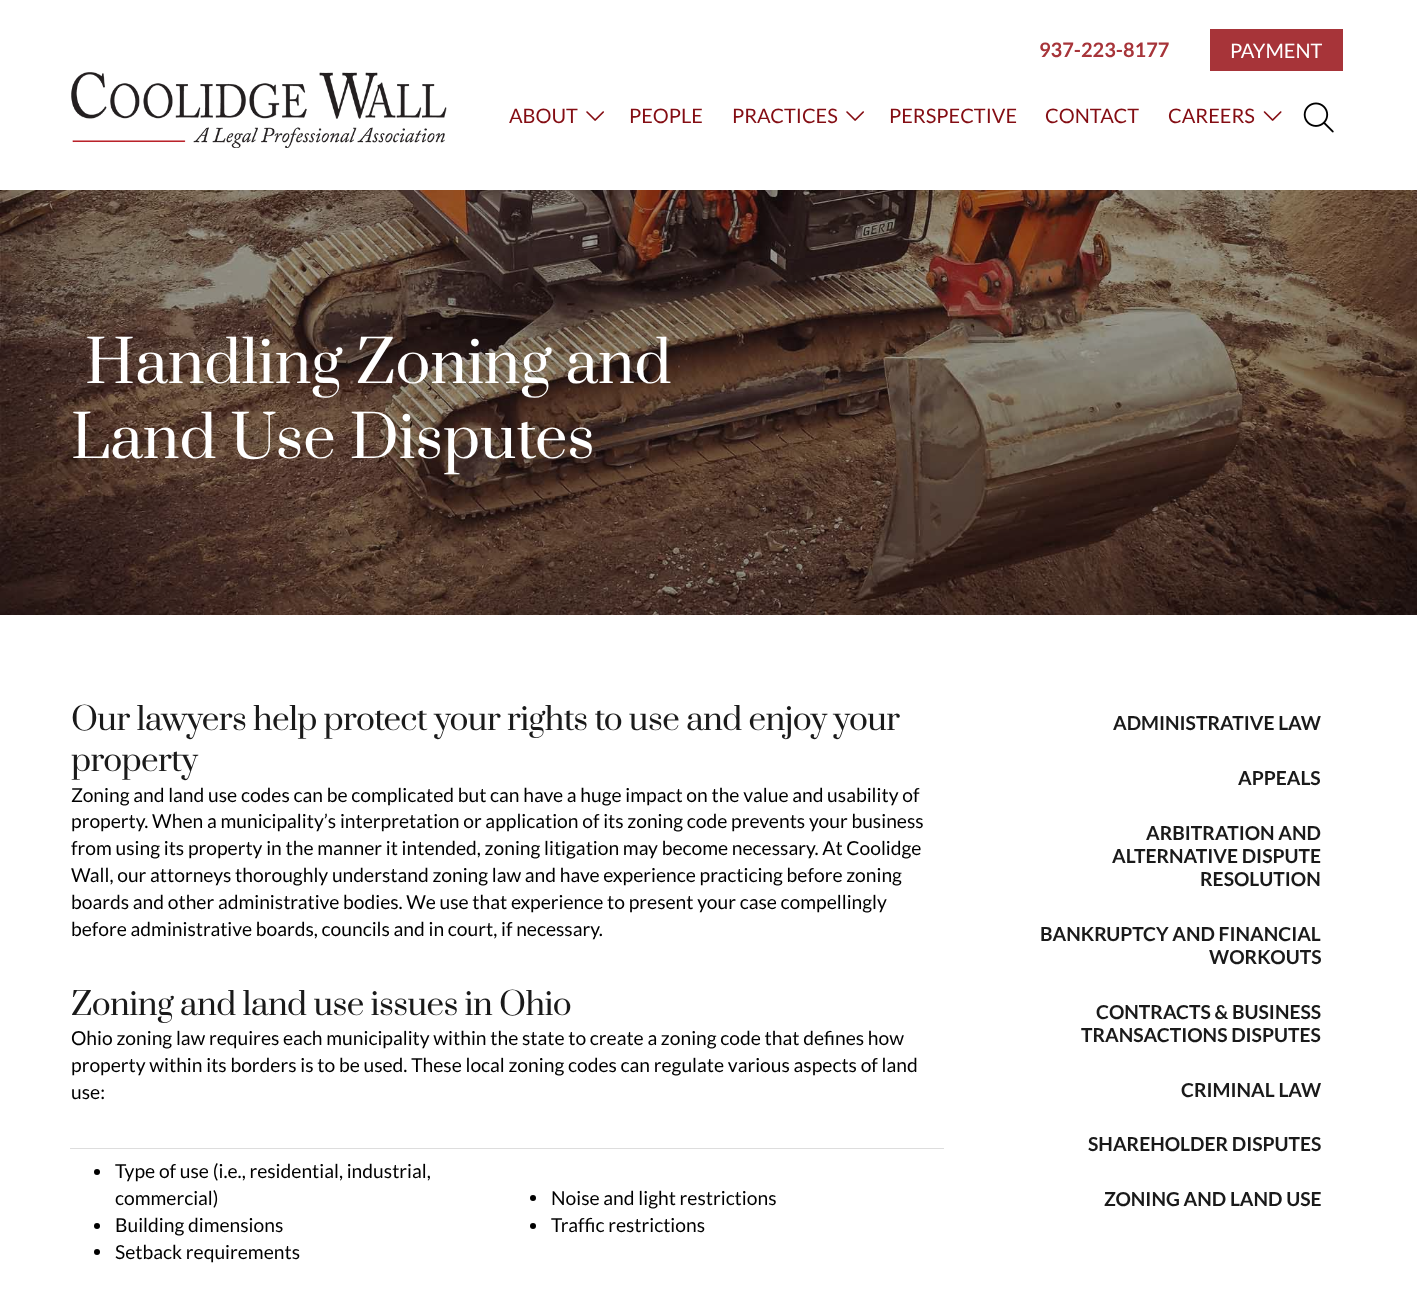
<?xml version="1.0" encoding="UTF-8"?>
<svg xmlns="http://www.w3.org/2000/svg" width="1417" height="1305">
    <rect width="100%" height="100%" fill="#FFFFFF"/>
    <text x="1039" y="57" font-family="Lato" font-size="20" font-weight="700" fill="#A73439">937-223-8177</text>
    <rect x="1210" y="29" width="133" height="42" fill="#A73439"/>
    <text x="1230" y="58" font-family="Lato" font-size="20" fill="#FFFFFF">PAYMENT</text>
    <image x="71" y="72" width="376" height="76" href="img_01.png"/>
    <text x="509" y="123" font-family="Lato" font-size="20" fill="#840D13">ABOUT</text>
    <image x="586" y="111" width="18" height="10" href="img_02.png"/>
    <text x="629" y="123" font-family="Lato" font-size="20" fill="#840D13">PEOPLE</text>
    <text x="732" y="123" font-family="Lato" font-size="20" fill="#840D13">PRACTICES</text>
    <image x="846" y="111" width="18" height="10" href="img_02.png"/>
    <text x="889" y="123" font-family="Lato" font-size="20" fill="#840D13">PERSPECTIVE</text>
    <text x="1045" y="123" font-family="Lato" font-size="20" fill="#840D13">CONTACT</text>
    <text x="1168" y="123" font-family="Lato" font-size="20" fill="#840D13">CAREERS</text>
    <image x="1263" y="111" width="19" height="10" href="img_03.png"/>
    <image x="1303" y="102" width="31" height="31" href="img_04.png"/>
    <image x="0" y="190" width="1417" height="425" href="img_05.png"/>
    <text x="85" y="383" font-family="Prata" font-size="57.75" fill="#FFFFFF">Handling Zoning and</text>
    <text x="71" y="458" font-family="Prata" font-size="57.75" fill="#FFFFFF">Land Use Disputes</text>
    <text font-family="Prata" font-size="31.25" letter-spacing="-0.62" fill="#1A1A1A">
        <tspan x="71" y="730">Our lawyers help protect your rights to use and enjoy your</tspan>
        <tspan x="71" y="771">property</tspan>
    </text>
    <text font-family="Lato" font-size="19.25" fill="#000000">
        <tspan x="71" y="802">Zoning and land use codes can be complicated but can have a huge impact on the value and usability of</tspan>
        <tspan x="71" y="828">property. When a municipality’s interpretation or application of its zoning code prevents your business</tspan>
        <tspan x="71" y="855">from using its property in the manner it intended, zoning litigation may become necessary. At Coolidge</tspan>
        <tspan x="71" y="882">Wall, our attorneys thoroughly understand zoning law and have experience practicing before zoning</tspan>
        <tspan x="71" y="909">boards and other administrative bodies. We use that experience to present your case compellingly</tspan>
        <tspan x="71" y="936">before administrative boards, councils and in court, if necessary.</tspan>
    </text>
    <text x="71" y="1015" font-family="Prata" font-size="31.25" letter-spacing="-0.62" fill="#1A1A1A">Zoning and land use issues in Ohio</text>
    <text font-family="Lato" font-size="19.25" fill="#000000">
        <tspan x="71" y="1045">Ohio zoning law requires each municipality within the state to create a zoning code that defines how</tspan>
        <tspan x="71" y="1072">property within its borders is to be used. These local zoning codes can regulate various aspects of land</tspan>
        <tspan x="71" y="1099">use:</tspan>
    </text>
    <circle cx="97" cy="1172" r="3" fill="#000000"/>
    <text font-family="Lato" font-size="19.25" fill="#000000">
        <tspan x="115" y="1178">Type of use (i.e., residential, industrial,</tspan>
        <tspan x="115" y="1205">commercial)</tspan>
    </text>
    <circle cx="97" cy="1226" r="3" fill="#000000"/>
    <text x="115" y="1232" font-family="Lato" font-size="19.25" fill="#000000">Building dimensions</text>
    <circle cx="97" cy="1252" r="3" fill="#000000"/>
    <text x="115" y="1259" font-family="Lato" font-size="19.25" fill="#000000">Setback requirements</text>
    <rect x="70" y="1148" width="874" height="1" fill="#DDDDDD"/>
    <circle cx="533" cy="1198" r="3" fill="#000000"/>
    <text x="551" y="1205" font-family="Lato" font-size="19.25" fill="#000000">Noise and light restrictions</text>
    <circle cx="533" cy="1226" r="3" fill="#000000"/>
    <text x="551" y="1232" font-family="Lato" font-size="19.25" fill="#000000">Traffic restrictions</text>
    <text x="1113" y="730" font-family="Lato" font-size="19.25" font-weight="700" fill="#1A1A1A">ADMINISTRATIVE LAW</text>
    <text x="1238" y="785" font-family="Lato" font-size="19.25" font-weight="700" fill="#1A1A1A">APPEALS</text>
    <text x="1146" y="840" font-family="Lato" font-size="19.25" font-weight="700" fill="#1A1A1A">ARBITRATION AND</text>
    <text x="1112" y="863" font-family="Lato" font-size="19.25" font-weight="700" fill="#1A1A1A">ALTERNATIVE DISPUTE</text>
    <text x="1200" y="886" font-family="Lato" font-size="19.25" font-weight="700" fill="#1A1A1A">RESOLUTION</text>
    <text x="1040" y="941" font-family="Lato" font-size="19.25" font-weight="700" fill="#1A1A1A">BANKRUPTCY AND FINANCIAL</text>
    <text x="1209" y="964" font-family="Lato" font-size="19.25" font-weight="700" fill="#1A1A1A">WORKOUTS</text>
    <text x="1096" y="1019" font-family="Lato" font-size="19.25" font-weight="700" fill="#1A1A1A">CONTRACTS &amp; BUSINESS</text>
    <text x="1081" y="1042" font-family="Lato" font-size="19.25" font-weight="700" fill="#1A1A1A">TRANSACTIONS DISPUTES</text>
    <text x="1181" y="1097" font-family="Lato" font-size="19.25" font-weight="700" fill="#1A1A1A">CRIMINAL LAW</text>
    <text x="1088" y="1151" font-family="Lato" font-size="19.25" font-weight="700" fill="#1A1A1A">SHAREHOLDER DISPUTES</text>
    <text x="1104" y="1206" font-family="Lato" font-size="19.25" font-weight="700" fill="#1A1A1A">ZONING AND LAND USE</text>
</svg>
